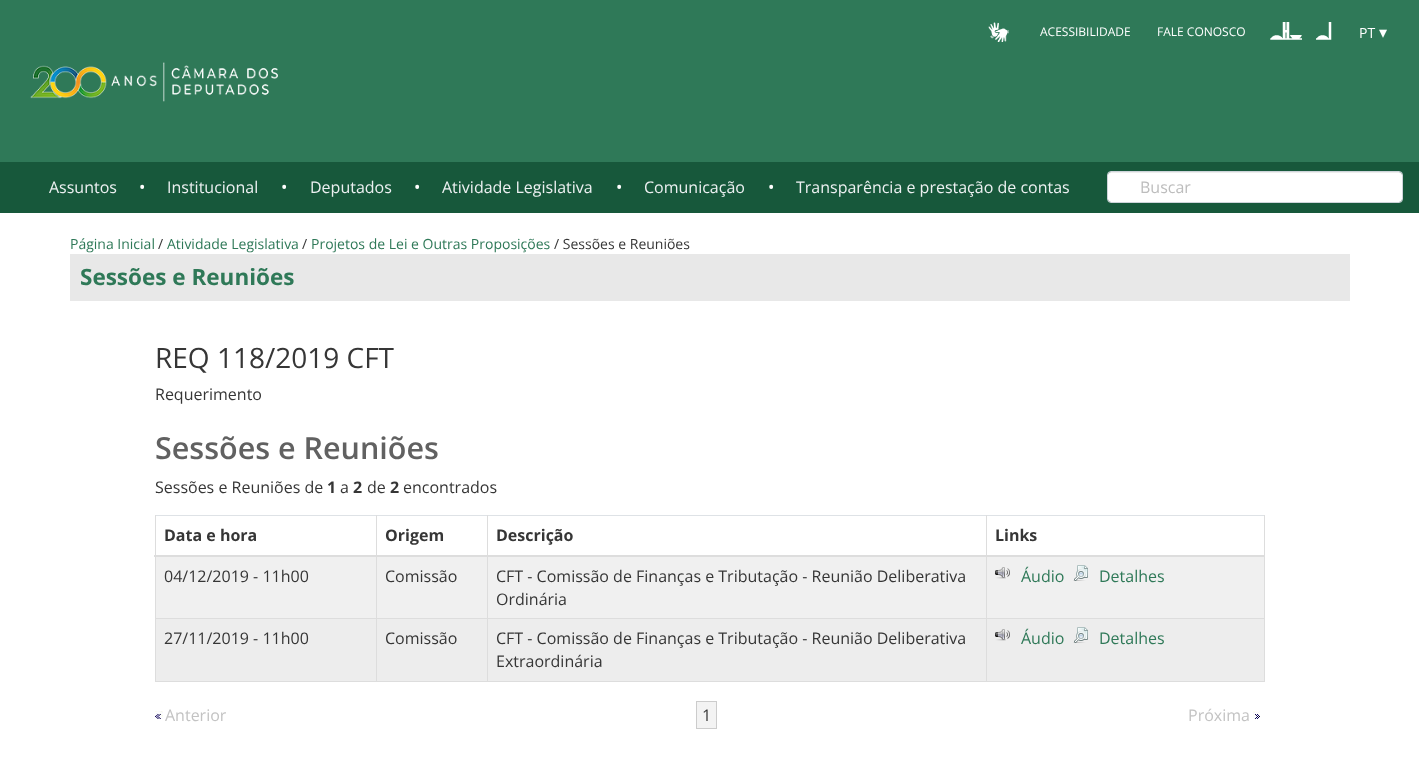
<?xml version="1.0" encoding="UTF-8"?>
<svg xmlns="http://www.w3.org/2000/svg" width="1419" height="767">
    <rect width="100%" height="100%" fill="#FFFFFF"/>
    <rect x="0" y="0" width="1419" height="162" fill="#2F7958"/>
    <image x="988" y="22" width="21" height="20" href="img_01.png"/>
    <text x="1040" y="36" font-family="Open Sans" font-size="12" fill="#FFFFFF">ACESSIBILIDADE</text>
    <text x="1157" y="36" font-family="Open Sans" font-size="12" fill="#FFFFFF">FALE CONOSCO</text>
    <image x="1270" y="22" width="32" height="18" href="img_02.png"/>
    <image x="1316" y="22" width="16" height="18" href="img_03.png"/>
    <text x="1359" y="38" font-family="Open Sans" font-size="14" fill="#FFFFFF">PT</text>
    <text x="1379" y="38" font-family="DejaVu Sans" font-size="16" fill="#FFFFFF">▾</text>
    <image x="30" y="62" width="248" height="40" href="img_04.png"/>
    <rect x="0" y="162" width="1419" height="51" fill="#17583B"/>
    <text x="49" y="193" font-family="Open Sans" font-size="16" fill="#ECF0F1">Assuntos</text>
    <text x="138" y="198" font-family="Open Sans" font-size="32" fill="#FFFFFF">·</text>
    <text x="167" y="193" font-family="Open Sans" font-size="16" fill="#ECF0F1">Institucional</text>
    <text x="280" y="198" font-family="Open Sans" font-size="32" fill="#FFFFFF">·</text>
    <text x="310" y="193" font-family="Open Sans" font-size="16" fill="#ECF0F1">Deputados</text>
    <text x="413" y="198" font-family="Open Sans" font-size="32" fill="#FFFFFF">·</text>
    <text x="442" y="193" font-family="Open Sans" font-size="16" fill="#ECF0F1">Atividade Legislativa</text>
    <text x="615" y="198" font-family="Open Sans" font-size="32" fill="#FFFFFF">·</text>
    <text x="644" y="193" font-family="Open Sans" font-size="16" fill="#ECF0F1">Comunicação</text>
    <text x="767" y="198" font-family="Open Sans" font-size="32" fill="#FFFFFF">·</text>
    <text x="796" y="193" font-family="Open Sans" font-size="16" fill="#ECF0F1">Transparência e prestação de contas</text>
    <rect x="1108" y="172" width="294" height="30" rx="3" fill="#FFFFFF"/>
    <path d="M 1111 173 H 1399 C 1401 173 1402 174 1402 176 L 1401 173 L 1400 172 H 1111 C 1109 172 1108 174 1108 176 C 1108 174 1109 173 1111 173 Z" fill="#000000" fill-opacity="0.07"/>
    <rect x="1107.5" y="171.5" width="295" height="31" rx="3.5" fill="none" stroke="#CED4DA"/>
    <text x="1140" y="193" font-family="Open Sans" font-size="16" fill="#BDBDBD">Buscar</text>
    <text x="70" y="249" font-family="Open Sans" font-size="14" fill="#2F7958">Página Inicial</text>
    <text x="158" y="249" font-family="Open Sans" font-size="14" fill="#363636">/</text>
    <text x="167" y="249" font-family="Open Sans" font-size="14" fill="#2F7958">Atividade Legislativa</text>
    <text x="302" y="249" font-family="Open Sans" font-size="14" fill="#363636">/</text>
    <text x="311" y="249" font-family="Open Sans" font-size="14" fill="#2F7958">Projetos de Lei e Outras Proposições</text>
    <text x="554" y="249" font-family="Open Sans" font-size="14" fill="#363636">/ Sessões e Reuniões</text>
    <rect x="70" y="254" width="1280" height="47" fill="#E8E8E8"/>
    <text x="80" y="285" font-family="Open Sans" font-size="22.5" font-weight="700" fill="#2F7958">Sessões e Reuniões</text>
    <text x="155" y="368" font-family="Open Sans" font-size="28" fill="#363636">REQ 118/2019 CFT</text>
    <text x="155" y="400" font-family="Open Sans" font-size="16" fill="#363636">Requerimento</text>
    <text x="155" y="459" font-family="Open Sans" font-size="30.5" font-weight="600" fill="#616161">Sessões e Reuniões</text>
    <text x="155" y="493" font-family="Open Sans" font-size="16" fill="#363636">Sessões e Reuniões de</text>
    <text x="327" y="493" font-family="Open Sans" font-size="16" font-weight="700" fill="#363636">1</text>
    <text x="340" y="493" font-family="Open Sans" font-size="16" fill="#363636">a</text>
    <text x="353" y="493" font-family="Open Sans" font-size="16" font-weight="700" fill="#363636">2</text>
    <text x="367" y="493" font-family="Open Sans" font-size="16" fill="#363636">de</text>
    <text x="390" y="493" font-family="Open Sans" font-size="16" font-weight="700" fill="#363636">2</text>
    <text x="403" y="493" font-family="Open Sans" font-size="16" fill="#363636">encontrados</text>
    <rect x="155" y="515" width="1110" height="1" fill="#DEE2E6"/>
    <text x="164" y="541" font-family="Open Sans" font-size="16" font-weight="700" fill="#363636">Data e hora</text>
    <text x="385" y="541" font-family="Open Sans" font-size="16" font-weight="700" fill="#363636">Origem</text>
    <text x="496" y="541" font-family="Open Sans" font-size="16" font-weight="700" fill="#363636">Descrição</text>
    <rect x="156" y="557" width="1108" height="61" fill="#F0F0F0"/>
    <rect x="986" y="618" width="279" height="1" fill="#DDDDDD"/>
    <rect x="156" y="619" width="1108" height="62" fill="#EDEDED"/>
    <rect x="1264" y="515" width="1" height="167" fill="#DDDDDD"/>
    <rect x="986" y="681" width="279" height="1" fill="#DDDDDD"/>
    <rect x="986" y="618" width="1" height="64" fill="#DDDDDD"/>
    <rect x="487" y="618" width="500" height="1" fill="#DDDDDD"/>
    <rect x="487" y="681" width="500" height="1" fill="#DDDDDD"/>
    <rect x="487" y="618" width="1" height="64" fill="#DDDDDD"/>
    <rect x="376" y="618" width="112" height="1" fill="#DDDDDD"/>
    <rect x="376" y="681" width="112" height="1" fill="#DDDDDD"/>
    <rect x="376" y="618" width="1" height="64" fill="#DDDDDD"/>
    <rect x="155" y="618" width="222" height="1" fill="#DDDDDD"/>
    <rect x="376" y="515" width="1" height="104" fill="#DDDDDD"/>
    <rect x="487" y="515" width="1" height="104" fill="#DDDDDD"/>
    <rect x="986" y="515" width="1" height="104" fill="#DDDDDD"/>
    <rect x="155" y="681" width="222" height="1" fill="#DDDDDD"/>
    <rect x="155" y="515" width="1" height="167" fill="#DDDDDD"/>
    <rect x="154" y="555" width="1111" height="2" fill="#DDDDDD"/>
    <text x="995" y="541" font-family="Open Sans" font-size="16" font-weight="700" fill="#363636">Links</text>
    <text x="164" y="582" font-family="Open Sans" font-size="16" fill="#363636">04/12/2019 - 11h00</text>
    <text x="385" y="582" font-family="Open Sans" font-size="16" fill="#363636">Comissão</text>
    <text font-family="Open Sans" font-size="16" fill="#363636">
        <tspan x="496" y="582">CFT - Comissão de Finanças e Tributação - Reunião Deliberativa</tspan>
        <tspan x="496" y="605">Ordinária</tspan>
    </text>
    <image x="995" y="567" width="15" height="12" href="img_05.png"/>
    <text x="1021" y="582" font-family="Open Sans" font-size="16" fill="#2F7958">Áudio</text>
    <image x="1073" y="565" width="15" height="16" href="img_06.png"/>
    <text x="1099" y="582" font-family="Open Sans" font-size="16" fill="#2F7958">Detalhes</text>
    <text x="164" y="644" font-family="Open Sans" font-size="16" fill="#363636">27/11/2019 - 11h00</text>
    <text x="385" y="644" font-family="Open Sans" font-size="16" fill="#363636">Comissão</text>
    <text font-family="Open Sans" font-size="16" fill="#363636">
        <tspan x="496" y="644">CFT - Comissão de Finanças e Tributação - Reunião Deliberativa</tspan>
        <tspan x="496" y="667">Extraordinária</tspan>
    </text>
    <image x="995" y="629" width="15" height="12" href="img_07.png"/>
    <text x="1021" y="644" font-family="Open Sans" font-size="16" fill="#2F7958">Áudio</text>
    <image x="1073" y="627" width="15" height="16" href="img_08.png"/>
    <text x="1099" y="644" font-family="Open Sans" font-size="16" fill="#2F7958">Detalhes</text>
    <image x="155" y="711" width="8" height="8" href="img_09.png"/>
    <text x="165" y="721" font-family="Open Sans" font-size="16" fill="#C3C3C3">Anterior</text>
    <rect x="696.5" y="701.5" width="20" height="27" fill="#F3F3F3" stroke="#CCCCCC"/>
    <text x="702" y="721" font-family="Open Sans" font-size="16" fill="#363636">1</text>
    <image x="1253" y="711" width="7" height="8" href="img_10.png"/>
    <text x="1188" y="721" font-family="Open Sans" font-size="16" fill="#C3C3C3">Próxima</text>
</svg>
